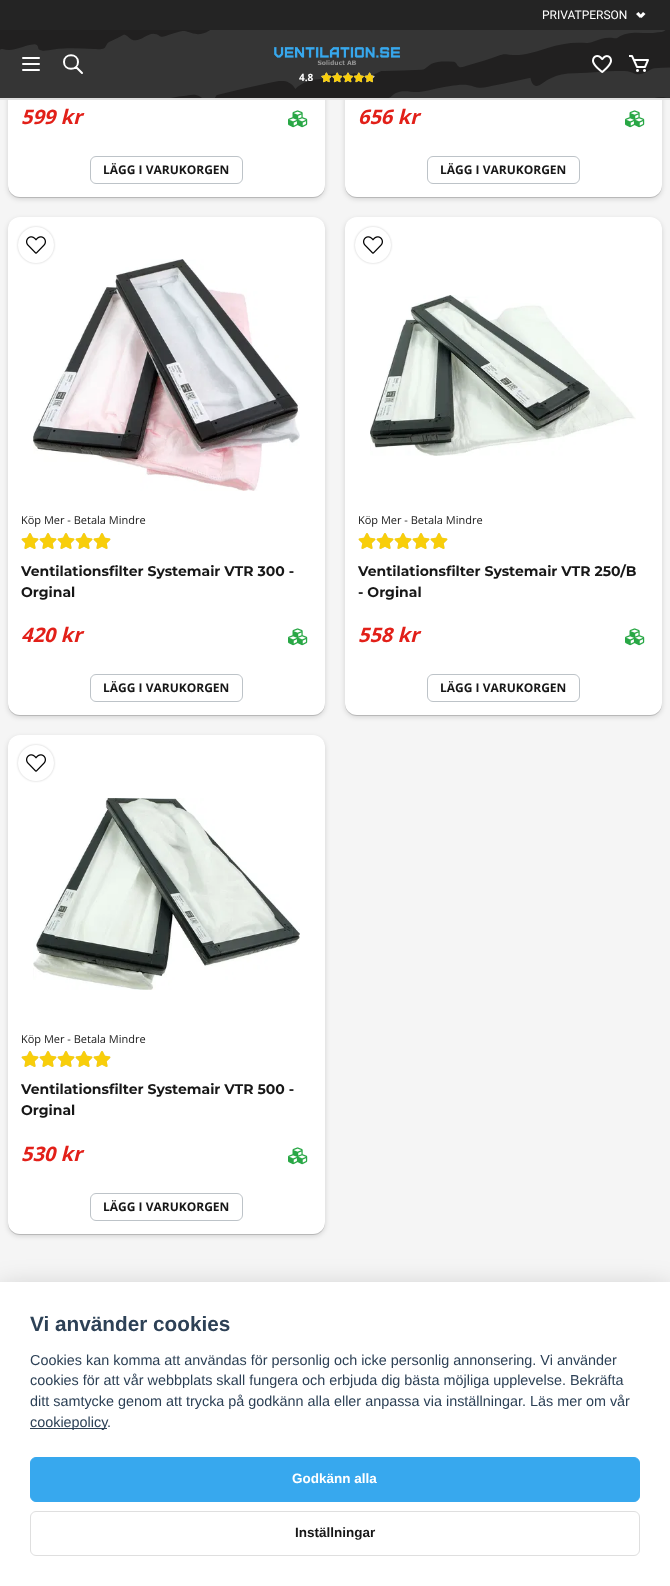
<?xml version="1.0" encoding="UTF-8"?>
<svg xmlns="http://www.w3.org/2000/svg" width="670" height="1586">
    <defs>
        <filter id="blur1" x="-50%" y="-200%" width="200%" height="500%"><feGaussianBlur stdDeviation="2.5"/></filter>
        <filter id="blur2" x="-50%" y="-200%" width="200%" height="500%"><feGaussianBlur stdDeviation="0.5"/></filter>
        <filter id="blur3" x="-50%" y="-200%" width="200%" height="500%"><feGaussianBlur stdDeviation="1"/></filter>
        <filter id="blur4" x="-50%" y="-200%" width="200%" height="500%"><feGaussianBlur stdDeviation="15"/></filter>
    </defs>
    <rect width="100%" height="100%" fill="#F5F5F5"/>
    <rect x="8" y="-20" width="317" height="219" rx="12" fill="#000000" fill-opacity="0.15" filter="url(#blur1)"/>
    <rect x="8" y="-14" width="317" height="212" rx="12" fill="#000000" fill-opacity="0.16" filter="url(#blur2)"/>
    <rect x="8" y="-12" width="317" height="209" rx="12" fill="#FFFFFF"/>
    <rect x="345" y="-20" width="317" height="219" rx="12" fill="#000000" fill-opacity="0.15" filter="url(#blur1)"/>
    <rect x="345" y="-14" width="317" height="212" rx="12" fill="#000000" fill-opacity="0.16" filter="url(#blur2)"/>
    <rect x="345" y="-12" width="317" height="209" rx="12" fill="#FFFFFF"/>
    <image x="0" y="30" width="670" height="68" href="img_01.png"/>
    <rect x="0" y="98" width="670" height="2" fill="#DFDFDF"/>
    <rect x="0" y="0" width="670" height="30" fill="#242424"/>
    <text x="542" y="19" font-family="Roboto" font-size="12" fill="#FFFFFF">PRIVATPERSON</text>
    <path d="M 639.5 16 L 643 12 L 645.5 14 L 641.5 18 Z" fill="#FFFFFF"/>
    <path d="M 636 14 L 638.5 12 L 642 16 L 640 18 Z" fill="#FFFFFF"/>
    <path d="M 23 58 H 39 M 23 64 H 39 M 23 70 H 39 M 82 73 L 76 67 M 78 62 C 78 71 64 71 64 62 C 64 53 78 53 78 62 Z" fill="none" stroke="#FFFFFF" stroke-width="2" stroke-linecap="round" stroke-linejoin="round"/>
    <image x="592" y="55" width="20" height="18" href="img_02.png"/>
    <image x="629" y="55" width="20" height="17" href="img_03.png"/>
    <image x="274" y="47" width="127" height="18" href="img_04.png"/>
    <text x="299" y="81" font-family="Open Sans" font-size="10" font-weight="700" fill="#FFFFFF">4.8</text>
    <image x="321" y="72" width="54" height="11" href="img_05.png"/>
    <image x="321" y="72" width="52" height="11" href="img_06.png"/>
    <text x="21" y="124" font-family="Open Sans" font-size="20" font-weight="700" font-style="italic" fill="#E22019">599 kr</text>
    <image x="288" y="110" width="20" height="18" href="img_07.png"/>
    <rect x="90.5" y="156.5" width="152" height="27" rx="5.5" fill="none" stroke="#BDC3C8"/>
    <text x="103" y="174" font-family="Open Sans" font-size="12" font-weight="700" fill="#171717">LÄGG I VARUKORGEN</text>
    <text x="358" y="124" font-family="Open Sans" font-size="20" font-weight="700" font-style="italic" fill="#E22019">656 kr</text>
    <image x="625" y="110" width="20" height="18" href="img_07.png"/>
    <rect x="427.5" y="156.5" width="152" height="27" rx="5.5" fill="none" stroke="#BDC3C8"/>
    <text x="440" y="174" font-family="Open Sans" font-size="12" font-weight="700" fill="#171717">LÄGG I VARUKORGEN</text>
    <rect x="8" y="219" width="317" height="498" rx="12" fill="#000000" fill-opacity="0.15" filter="url(#blur1)"/>
    <rect x="8" y="218" width="317" height="498" rx="12" fill="#000000" fill-opacity="0.16" filter="url(#blur2)"/>
    <rect x="8" y="217" width="317" height="498" rx="12" fill="#FFFFFF"/>
    <image x="33" y="259" width="267" height="232" href="img_09.png"/>
    <rect x="18" y="227" width="36" height="36" rx="18" fill="#000000" fill-opacity="0.2" filter="url(#blur3)"/>
    <circle cx="36" cy="245" r="18" fill="#FFFFFF"/>
    <image x="26" y="236" width="20" height="18" href="img_08.png"/>
    <text x="21" y="524" font-family="Open Sans" font-size="11" fill="#171717">Köp Mer - Betala Mindre</text>
    <image x="21" y="533" width="90" height="16" href="img_10.png"/>
    <image x="21" y="533" width="90" height="16" href="img_11.png"/>
    <text font-family="Montserrat" font-size="14" font-weight="700" fill="#171717">
        <tspan x="21" y="576">Ventilationsfilter Systemair VTR 300 -</tspan>
        <tspan x="21" y="597">Orginal</tspan>
    </text>
    <text x="21" y="642" font-family="Open Sans" font-size="20" font-weight="700" font-style="italic" fill="#E22019">420 kr</text>
    <image x="288" y="628" width="20" height="18" href="img_07.png"/>
    <rect x="90.5" y="674.5" width="152" height="27" rx="5.5" fill="none" stroke="#BDC3C8"/>
    <text x="103" y="692" font-family="Open Sans" font-size="12" font-weight="700" fill="#171717">LÄGG I VARUKORGEN</text>
    <rect x="345" y="219" width="317" height="498" rx="12" fill="#000000" fill-opacity="0.15" filter="url(#blur1)"/>
    <rect x="345" y="218" width="317" height="498" rx="12" fill="#000000" fill-opacity="0.16" filter="url(#blur2)"/>
    <rect x="345" y="217" width="317" height="498" rx="12" fill="#FFFFFF"/>
    <rect x="355" y="227" width="36" height="36" rx="18" fill="#000000" fill-opacity="0.2" filter="url(#blur3)"/>
    <circle cx="373" cy="245" r="18" fill="#FFFFFF"/>
    <image x="363" y="236" width="20" height="18" href="img_08.png"/>
    <image x="370" y="295" width="266" height="161" href="img_12.png"/>
    <text x="358" y="524" font-family="Open Sans" font-size="11" fill="#171717">Köp Mer - Betala Mindre</text>
    <image x="358" y="533" width="90" height="16" href="img_10.png"/>
    <image x="358" y="533" width="90" height="16" href="img_11.png"/>
    <text font-family="Montserrat" font-size="14" font-weight="700" fill="#171717">
        <tspan x="358" y="576">Ventilationsfilter Systemair VTR 250/B</tspan>
        <tspan x="358" y="597">- Orginal</tspan>
    </text>
    <text x="358" y="642" font-family="Open Sans" font-size="20" font-weight="700" font-style="italic" fill="#E22019">558 kr</text>
    <image x="625" y="628" width="20" height="18" href="img_07.png"/>
    <rect x="427.5" y="674.5" width="152" height="27" rx="5.5" fill="none" stroke="#BDC3C8"/>
    <text x="440" y="692" font-family="Open Sans" font-size="12" font-weight="700" fill="#171717">LÄGG I VARUKORGEN</text>
    <rect x="8" y="737" width="317" height="499" rx="12" fill="#000000" fill-opacity="0.15" filter="url(#blur1)"/>
    <rect x="8" y="736" width="317" height="499" rx="12" fill="#000000" fill-opacity="0.16" filter="url(#blur2)"/>
    <rect x="8" y="735" width="317" height="499" rx="12" fill="#FFFFFF"/>
    <rect x="18" y="745" width="36" height="36" rx="18" fill="#000000" fill-opacity="0.2" filter="url(#blur3)"/>
    <circle cx="36" cy="763" r="18" fill="#FFFFFF"/>
    <image x="26" y="754" width="20" height="18" href="img_08.png"/>
    <image x="33" y="798" width="267" height="192" href="img_13.png"/>
    <text x="21" y="1043" font-family="Open Sans" font-size="11" fill="#171717">Köp Mer - Betala Mindre</text>
    <image x="21" y="1051" width="90" height="16" href="img_10.png"/>
    <image x="21" y="1051" width="90" height="16" href="img_11.png"/>
    <text font-family="Montserrat" font-size="14" font-weight="700" fill="#171717">
        <tspan x="21" y="1094">Ventilationsfilter Systemair VTR 500 -</tspan>
        <tspan x="21" y="1115">Orginal</tspan>
    </text>
    <text x="21" y="1161" font-family="Open Sans" font-size="20" font-weight="700" font-style="italic" fill="#E22019">530 kr</text>
    <image x="288" y="1147" width="20" height="18" href="img_07.png"/>
    <rect x="90.5" y="1193.5" width="152" height="27" rx="5.5" fill="none" stroke="#BDC3C8"/>
    <text x="103" y="1211" font-family="Open Sans" font-size="12" font-weight="700" fill="#171717">LÄGG I VARUKORGEN</text>
    <rect x="0" y="1292" width="670" height="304" fill="#020203" fill-opacity="0.28" filter="url(#blur4)"/>
    <rect x="0" y="1282" width="670" height="304" fill="#FFFFFF"/>
    <text x="30" y="1331" font-family="Liberation Sans" font-size="20.75" font-weight="700" fill="#2D4156">Vi använder cookies</text>
    <text font-family="Liberation Sans" font-size="14.4" fill="#2D4156">
        <tspan x="30" y="1365">Cookies kan komma att användas för personlig och icke personlig annonsering. Vi använder</tspan>
        <tspan x="30" y="1385">cookies för att vår webbplats skall fungera och erbjuda dig bästa möjliga upplevelse. Bekräfta</tspan>
        <tspan x="30" y="1406">ditt samtycke genom att trycka på godkänn alla eller anpassa via inställningar. Läs mer om vår</tspan>
    </text>
    <rect x="30" y="1428" width="77" height="1" fill="#2D4156"/>
    <text x="30" y="1427" font-family="Liberation Sans" font-size="14.4" fill="#2D4156">cookiepolicy</text>
    <text x="107" y="1427" font-family="Liberation Sans" font-size="14.4" fill="#2D4156">.</text>
    <rect x="30.5" y="1457.5" width="609" height="44" rx="5.5" fill="#37A8EE" stroke="#37A8EE"/>
    <text x="292" y="1483" font-family="Liberation Sans" font-size="13.5" font-weight="700" fill="#FFFFFF">Godkänn alla</text>
    <rect x="30.5" y="1511.5" width="609" height="44" rx="5.5" fill="none" stroke="#DFDFDF"/>
    <text x="295" y="1537" font-family="Liberation Sans" font-size="13.5" font-weight="700" fill="#171717">Inställningar</text>
</svg>
